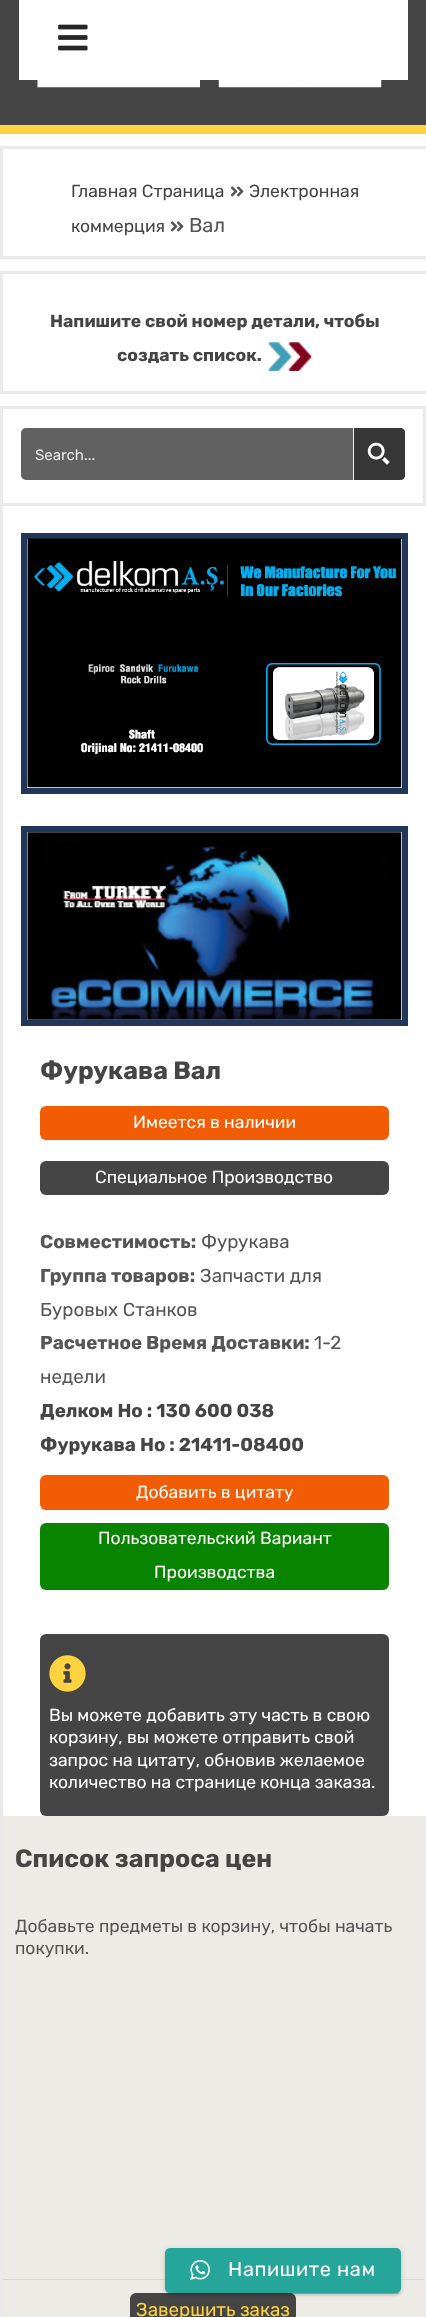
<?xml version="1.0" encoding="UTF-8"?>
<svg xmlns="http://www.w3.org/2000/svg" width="426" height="2317">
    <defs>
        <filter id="blur1" x="-50%" y="-200%" width="200%" height="500%"><feGaussianBlur stdDeviation="0.5"/></filter>
        <filter id="blur2" x="-50%" y="-200%" width="200%" height="500%"><feGaussianBlur stdDeviation="3"/></filter>
        <filter id="blur3" x="-50%" y="-200%" width="200%" height="500%"><feGaussianBlur stdDeviation="1"/></filter>
    </defs>
    <rect width="100%" height="100%" fill="#FFFFFF"/>
    <rect x="0" y="0" width="426" height="125" fill="#454545"/>
    <rect x="0" y="125" width="426" height="9" fill="#FFD23F"/>
    <image x="37" y="80" width="163" height="8" href="img_01.png"/>
    <image x="218" y="80" width="164" height="8" href="img_02.png"/>
    <rect x="19" y="0" width="389" height="80" fill="#FFFFFF"/>
    <image x="58" y="24" width="30" height="27" href="img_03.png"/>
    <rect x="0" y="146" width="426" height="3" fill="#EAEAEA"/>
    <rect x="0" y="256" width="426" height="3" fill="#EAEAEA"/>
    <rect x="0" y="146" width="3" height="113" fill="#EAEAEA"/>
    <text x="71" y="197" font-family="Rubik" font-size="17.5" fill="#454545">Главная Страница</text>
    <image x="230" y="186" width="14" height="11" href="img_04.png"/>
    <text x="249" y="197" font-family="Rubik" font-size="17.5" fill="#454545">Электронная</text>
    <text x="71" y="232" font-family="Rubik" font-size="17.5" fill="#454545">коммерция</text>
    <image x="170" y="221" width="14" height="11" href="img_04.png"/>
    <text x="189" y="232" font-family="Rubik" font-size="20" fill="#555555">Вал</text>
    <rect x="0" y="271" width="426" height="3" fill="#EAEAEA"/>
    <rect x="0" y="391" width="426" height="3" fill="#EAEAEA"/>
    <rect x="0" y="271" width="3" height="123" fill="#EAEAEA"/>
    <text x="50" y="327" font-family="Rubik" font-size="17.5" font-weight="700" fill="#454545">Напишите свой номер детали, чтобы</text>
    <text x="117" y="361" font-family="Rubik" font-size="17.5" font-weight="700" fill="#454545">создать список.</text>
    <image x="268" y="342" width="44" height="29" href="img_05.png"/>
    <rect x="1.5" y="407.5" width="423" height="97" fill="none" stroke="#EAEAEA" stroke-width="3"/>
    <rect x="21" y="428" width="384" height="52" rx="5" fill="#616161"/>
    <text x="35" y="460" font-family="Rubik" font-size="15" fill="#E7E7E7">Search...</text>
    <path d="M 353 428 H 400 C 403 428 405 430 405 433 V 475 C 405 478 403 480 400 480 H 353 Z" fill="#373737"/>
    <rect x="353" y="428" width="1" height="52" fill="#F1F1F1"/>
    <image x="367" y="442" width="23" height="23" href="img_06.png"/>
    <rect x="0" y="506" width="3" height="1811" fill="#EAEAEA"/>
    <rect x="24" y="536" width="381" height="255" fill="none" stroke="#213759" stroke-width="6"/>
    <image x="27" y="538" width="375" height="250" href="img_07.png"/>
    <rect x="24" y="829" width="381" height="194" fill="none" stroke="#213759" stroke-width="6"/>
    <image x="27" y="832" width="375" height="188" href="img_08.png"/>
    <text x="40" y="1079" font-family="Rubik" font-size="25" font-weight="700" fill="#454545">Фурукава Вал</text>
    <rect x="40" y="1106" width="349" height="34" rx="6" fill="#F25C05"/>
    <text x="133" y="1128" font-family="Rubik" font-size="17.5" fill="#FFFFFF">Имеется в наличии</text>
    <rect x="40" y="1161" width="349" height="34" rx="6" fill="#454545"/>
    <text x="95" y="1183" font-family="Rubik" font-size="17.5" fill="#FFFFFF">Специальное Производство</text>
    <text x="40" y="1248" font-family="Rubik" font-size="18.75" font-weight="700" fill="#555555">Совместимость:</text>
    <text x="201" y="1248" font-family="Rubik" font-size="18.75" fill="#555555">Фурукава</text>
    <text x="40" y="1282" font-family="Rubik" font-size="18.75" font-weight="700" fill="#555555">Группа товаров:</text>
    <text x="200" y="1282" font-family="Rubik" font-size="18.75" fill="#555555">Запчасти для</text>
    <text x="40" y="1316" font-family="Rubik" font-size="18.75" fill="#555555">Буровых Станков</text>
    <text x="40" y="1349" font-family="Rubik" font-size="18.75" font-weight="700" fill="#555555">Расчетное Время Доставки:</text>
    <text x="314" y="1349" font-family="Rubik" font-size="18.75" fill="#555555">1-2</text>
    <text x="40" y="1383" font-family="Rubik" font-size="18.75" fill="#555555">недели</text>
    <text font-family="Rubik" font-size="18.75" font-weight="700" fill="#454545">
        <tspan x="40" y="1417">Делком Но : 130 600 038</tspan>
        <tspan x="40" y="1451">Фурукава Ho : 21411-08400</tspan>
    </text>
    <rect x="40" y="1475" width="349" height="35" rx="6" fill="#F25C05"/>
    <text x="136" y="1498" font-family="Rubik" font-size="17.5" fill="#FFFFFF">Добавить в цитату</text>
    <rect x="40" y="1523" width="349" height="67" rx="6" fill="#098400"/>
    <text x="98" y="1544" font-family="Rubik" font-size="17.5" fill="#FFFFFF">Пользовательский Вариант</text>
    <text x="154" y="1578" font-family="Rubik" font-size="17.5" fill="#FFFFFF">Производства</text>
    <rect x="40" y="1634" width="349" height="182" rx="6" fill="#454545"/>
    <image x="49" y="1655" width="37" height="37" href="img_09.png"/>
    <text font-family="Rubik" font-size="17.5" fill="#FFFFFF">
        <tspan x="49" y="1721">Вы можете добавить эту часть в свою</tspan>
        <tspan x="49" y="1743">корзину, вы можете отправить свой</tspan>
        <tspan x="49" y="1766">запрос на цитату, обновив желаемое</tspan>
        <tspan x="49" y="1788">количество на странице конца заказа.</tspan>
    </text>
    <rect x="3" y="1816" width="421" height="501" fill="#ECEBE6"/>
    <rect x="424" y="1816" width="2" height="501" fill="#EAEAEA"/>
    <text x="15" y="1867" font-family="Rubik" font-size="25" font-weight="700" fill="#454545">Список запроса цен</text>
    <text font-family="Rubik" font-size="17.5" fill="#555555">
        <tspan x="15" y="1932">Добавьте предметы в корзину, чтобы начать</tspan>
        <tspan x="15" y="1954">покупки.</tspan>
    </text>
    <rect x="3" y="2279" width="421" height="1" fill="#D7D7D7"/>
    <rect x="130" y="2293" width="166" height="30" rx="6" fill="#454545"/>
    <text x="136" y="2316" font-family="Rubik" font-size="18.75" fill="#FFD23F">Завершить заказ</text>
    <rect x="168" y="2254" width="231" height="40" rx="2.5" fill="#000000" fill-opacity="0.2" filter="url(#blur1)"/>
    <rect x="165" y="2249" width="236" height="45" rx="5" fill="#000000" fill-opacity="0.12" filter="url(#blur2)"/>
    <rect x="165" y="2250" width="236" height="45" rx="5" fill="#000000" fill-opacity="0.14" filter="url(#blur3)"/>
    <rect x="165" y="2248" width="236" height="45" rx="5" fill="#26A69A"/>
    <image x="190" y="2260" width="20" height="20" href="img_10.png"/>
    <text x="228" y="2276" font-family="Rubik" font-size="20" letter-spacing="0.6" fill="#FFFFFF">Напишите нам</text>
</svg>
